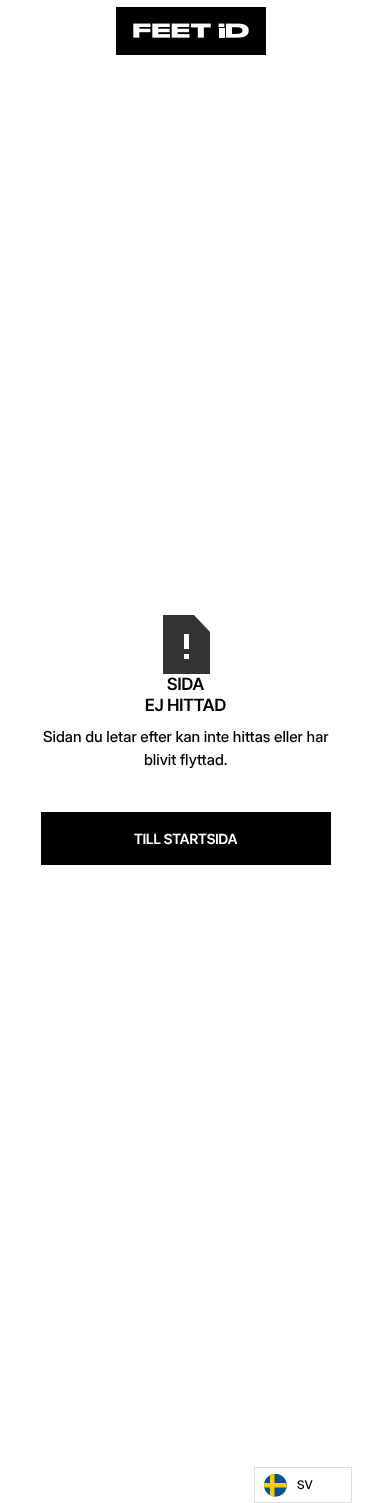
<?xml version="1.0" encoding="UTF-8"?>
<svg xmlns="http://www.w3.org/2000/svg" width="372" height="1503">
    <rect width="100%" height="100%" fill="#FFFFFF"/>
    <image x="116" y="7" width="150" height="48" href="img_01.png"/>
    <path d="M 163 615 H 194 L 210 632 V 674 H 163 Z M 184 634 H 189 V 649 H 184 Z M 184 654 H 189 V 659 H 184 Z" fill="#333333" fill-rule="evenodd"/>
    <text x="167" y="690" font-family="Inter Tight" font-size="17" font-weight="600" fill="#000000">SIDA</text>
    <text x="145" y="711" font-family="Inter Tight" font-size="17" font-weight="600" fill="#000000">EJ HITTAD</text>
    <text x="43" y="742" font-family="Inter" font-size="15.1" font-weight="500" fill="#000000">Sidan du letar efter kan inte hittas eller har</text>
    <text x="144" y="765" font-family="Inter" font-size="15.1" font-weight="500" fill="#000000">blivit flyttad.</text>
    <rect x="41" y="812" width="290" height="53" fill="#000000"/>
    <text x="134" y="844" font-family="Inter Tight" font-size="14" font-weight="600" fill="#FFFFFF">TILL STARTSIDA</text>
    <rect x="254.5" y="1467.5" width="97" height="35" fill="none" stroke="#E0E0E0"/>
    <image x="264" y="1474" width="23" height="23" href="img_02.png"/>
    <text x="297" y="1489" font-family="Inter" font-size="12" font-weight="500" fill="#000000">SV</text>
</svg>
